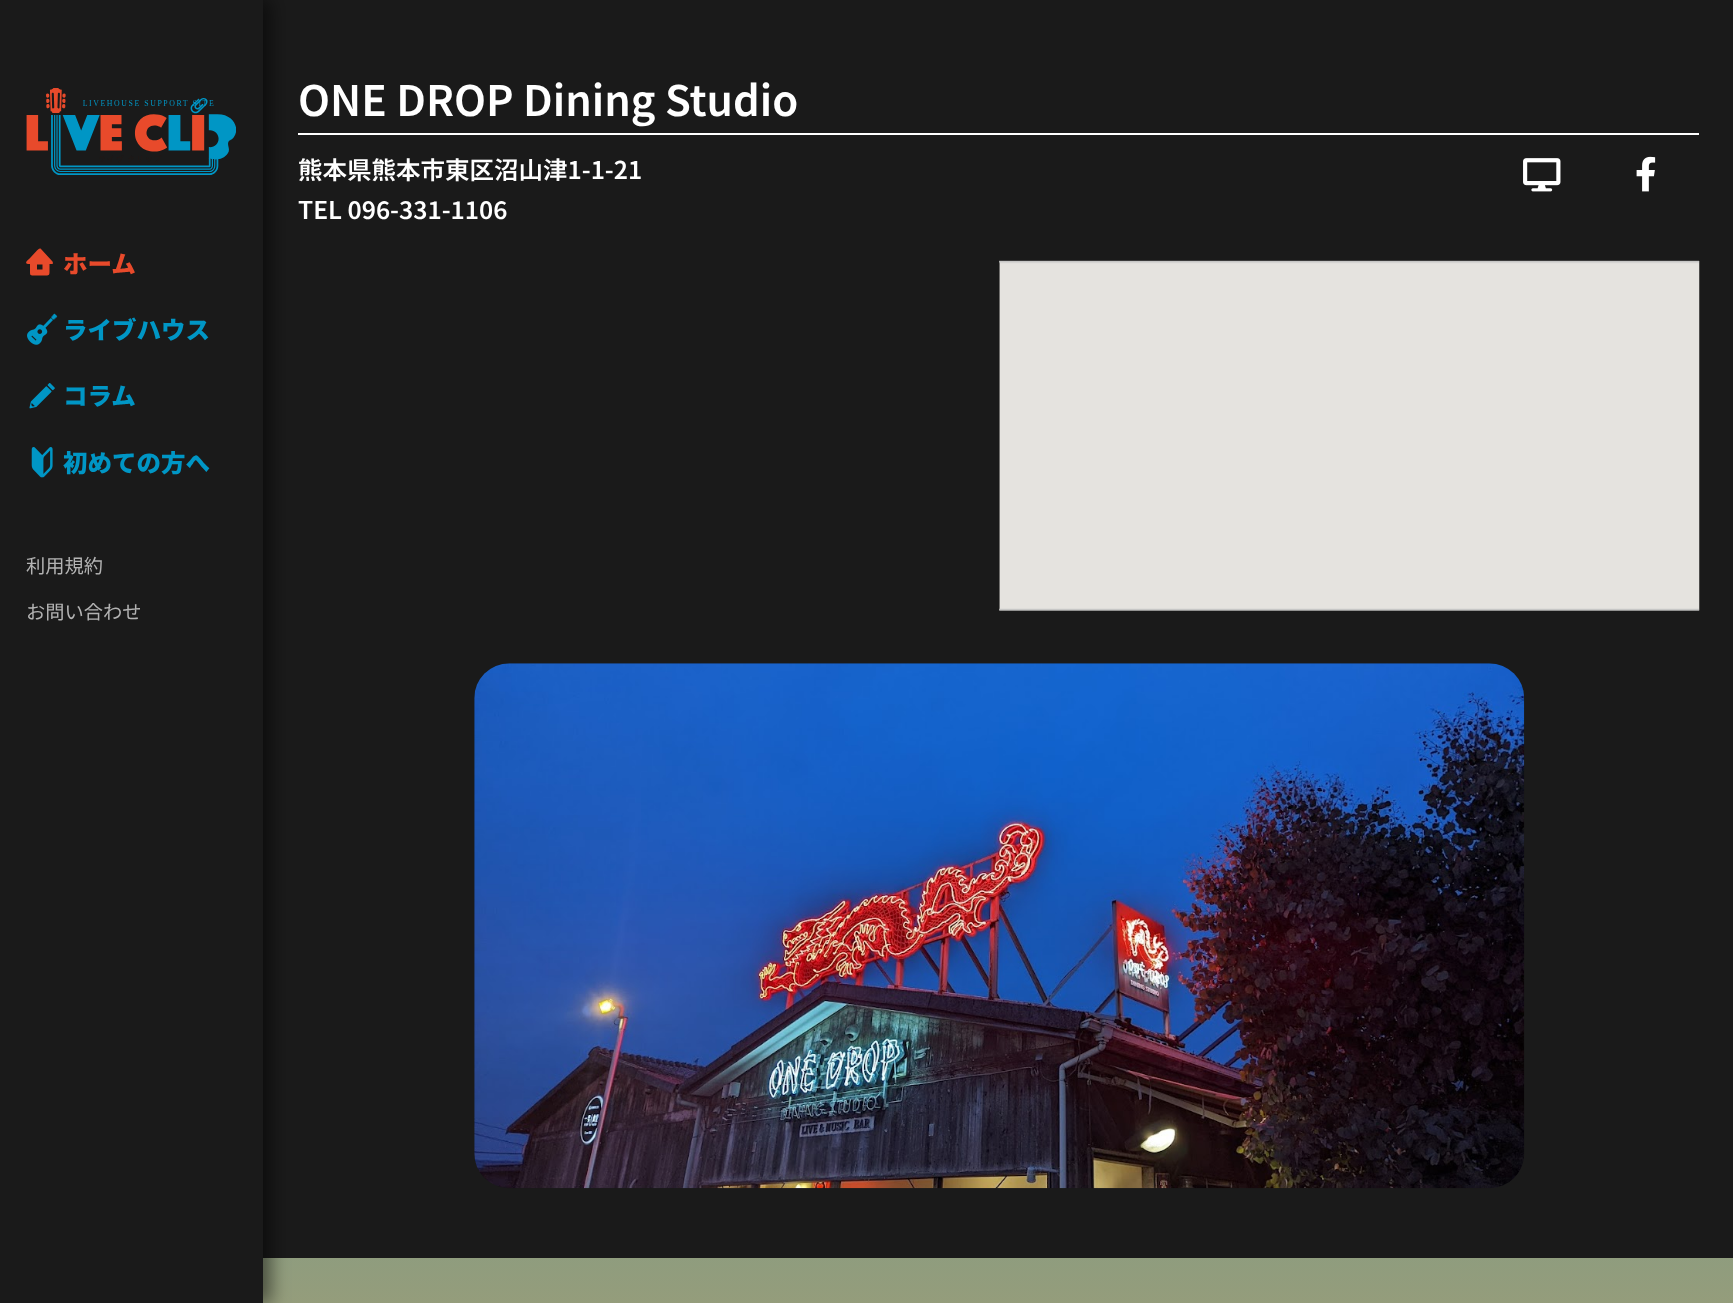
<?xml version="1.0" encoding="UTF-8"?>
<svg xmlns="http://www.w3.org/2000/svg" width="1733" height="1303">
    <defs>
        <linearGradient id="g1" gradientUnits="userSpaceOnUse" x1="867" y1="0" x2="867" y2="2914"><stop offset="0" stop-color="#0096C5"/><stop offset="0.6" stop-color="#C79F62"/><stop offset="1" stop-color="#E84A2B"/></linearGradient>
        <filter id="blur1" x="-50%" y="-200%" width="200%" height="500%"><feGaussianBlur stdDeviation="9"/></filter>
    </defs>
    <rect width="100%" height="100%" fill="#FFFFFF"/>
    <rect x="263" y="1258" width="1470" height="45" fill="url(#g1)"/>
    <rect x="263" y="0" width="1470" height="1258" fill="#1A1A1A"/>
    <text x="298" y="116" font-family="Noto Sans JP" font-size="42" font-weight="600" fill="#FFFFFF">ONE DROP Dining Studio</text>
    <rect x="298" y="133" width="1401" height="2" fill="#FFFFFF"/>
    <text font-family="Noto Sans JP" font-size="24.5" font-weight="600" fill="#FFFFFF">
        <tspan x="298" y="179">熊本県熊本市東区沼山津1-1-21</tspan>
        <tspan x="298" y="219">TEL 096-331-1106</tspan>
    </text>
    <image x="1523" y="158" width="38" height="34" href="img_01.png"/>
    <image x="1636" y="156" width="20" height="36" href="img_02.png"/>
    <image x="999" y="260" width="701" height="351" href="img_03.png"/>
    <image x="474" y="663" width="1051" height="526" href="img_04.png"/>
    <rect x="9" y="0" width="262" height="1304" fill="#000000" fill-opacity="0.5" filter="url(#blur1)"/>
    <rect x="0" y="0" width="263" height="1303" fill="#1A1A1A"/>
    <image x="26" y="88" width="210" height="87" href="img_05.png"/>
    <text x="63" y="273" font-family="Noto Sans JP" font-size="24.5" font-weight="900" fill="#E84A2B">ホーム</text>
    <path d="M 52.5 261.5 L 53 263 C 53 264.5 50.5 264 49.5 264 V 272 C 49.5 275.5 48.5 275.5 45 275.5 H 34.5 C 30.5 275.5 30 275.5 30 272 V 264 C 22.5 264 27.5 260.5 30.5 257.5 L 36.5 251 C 37.5 250.5 39.5 247.5 41 249 Z M 42.5 269.5 V 264.5 H 37 V 269.5 Z" fill="#E84A2B" fill-rule="evenodd"/>
    <image x="27" y="313" width="31" height="32" href="img_06.png"/>
    <text x="63" y="339" font-family="Noto Sans JP" font-size="24.5" font-weight="900" fill="#0096C5">ライブハウス</text>
    <image x="29" y="383" width="26" height="26" href="img_07.png"/>
    <text x="63" y="405" font-family="Noto Sans JP" font-size="24.5" font-weight="900" fill="#0096C5">コラム</text>
    <image x="31" y="447" width="22" height="31" href="img_08.png"/>
    <text x="63" y="472" font-family="Noto Sans JP" font-size="24.5" font-weight="900" fill="#0096C5">初めての方へ</text>
    <text x="26" y="573" font-family="Noto Sans JP" font-size="19.25" fill="#B3B3B3">利用規約</text>
    <text x="26" y="619" font-family="Noto Sans JP" font-size="19.25" fill="#B3B3B3">お問い合わせ</text>
</svg>
